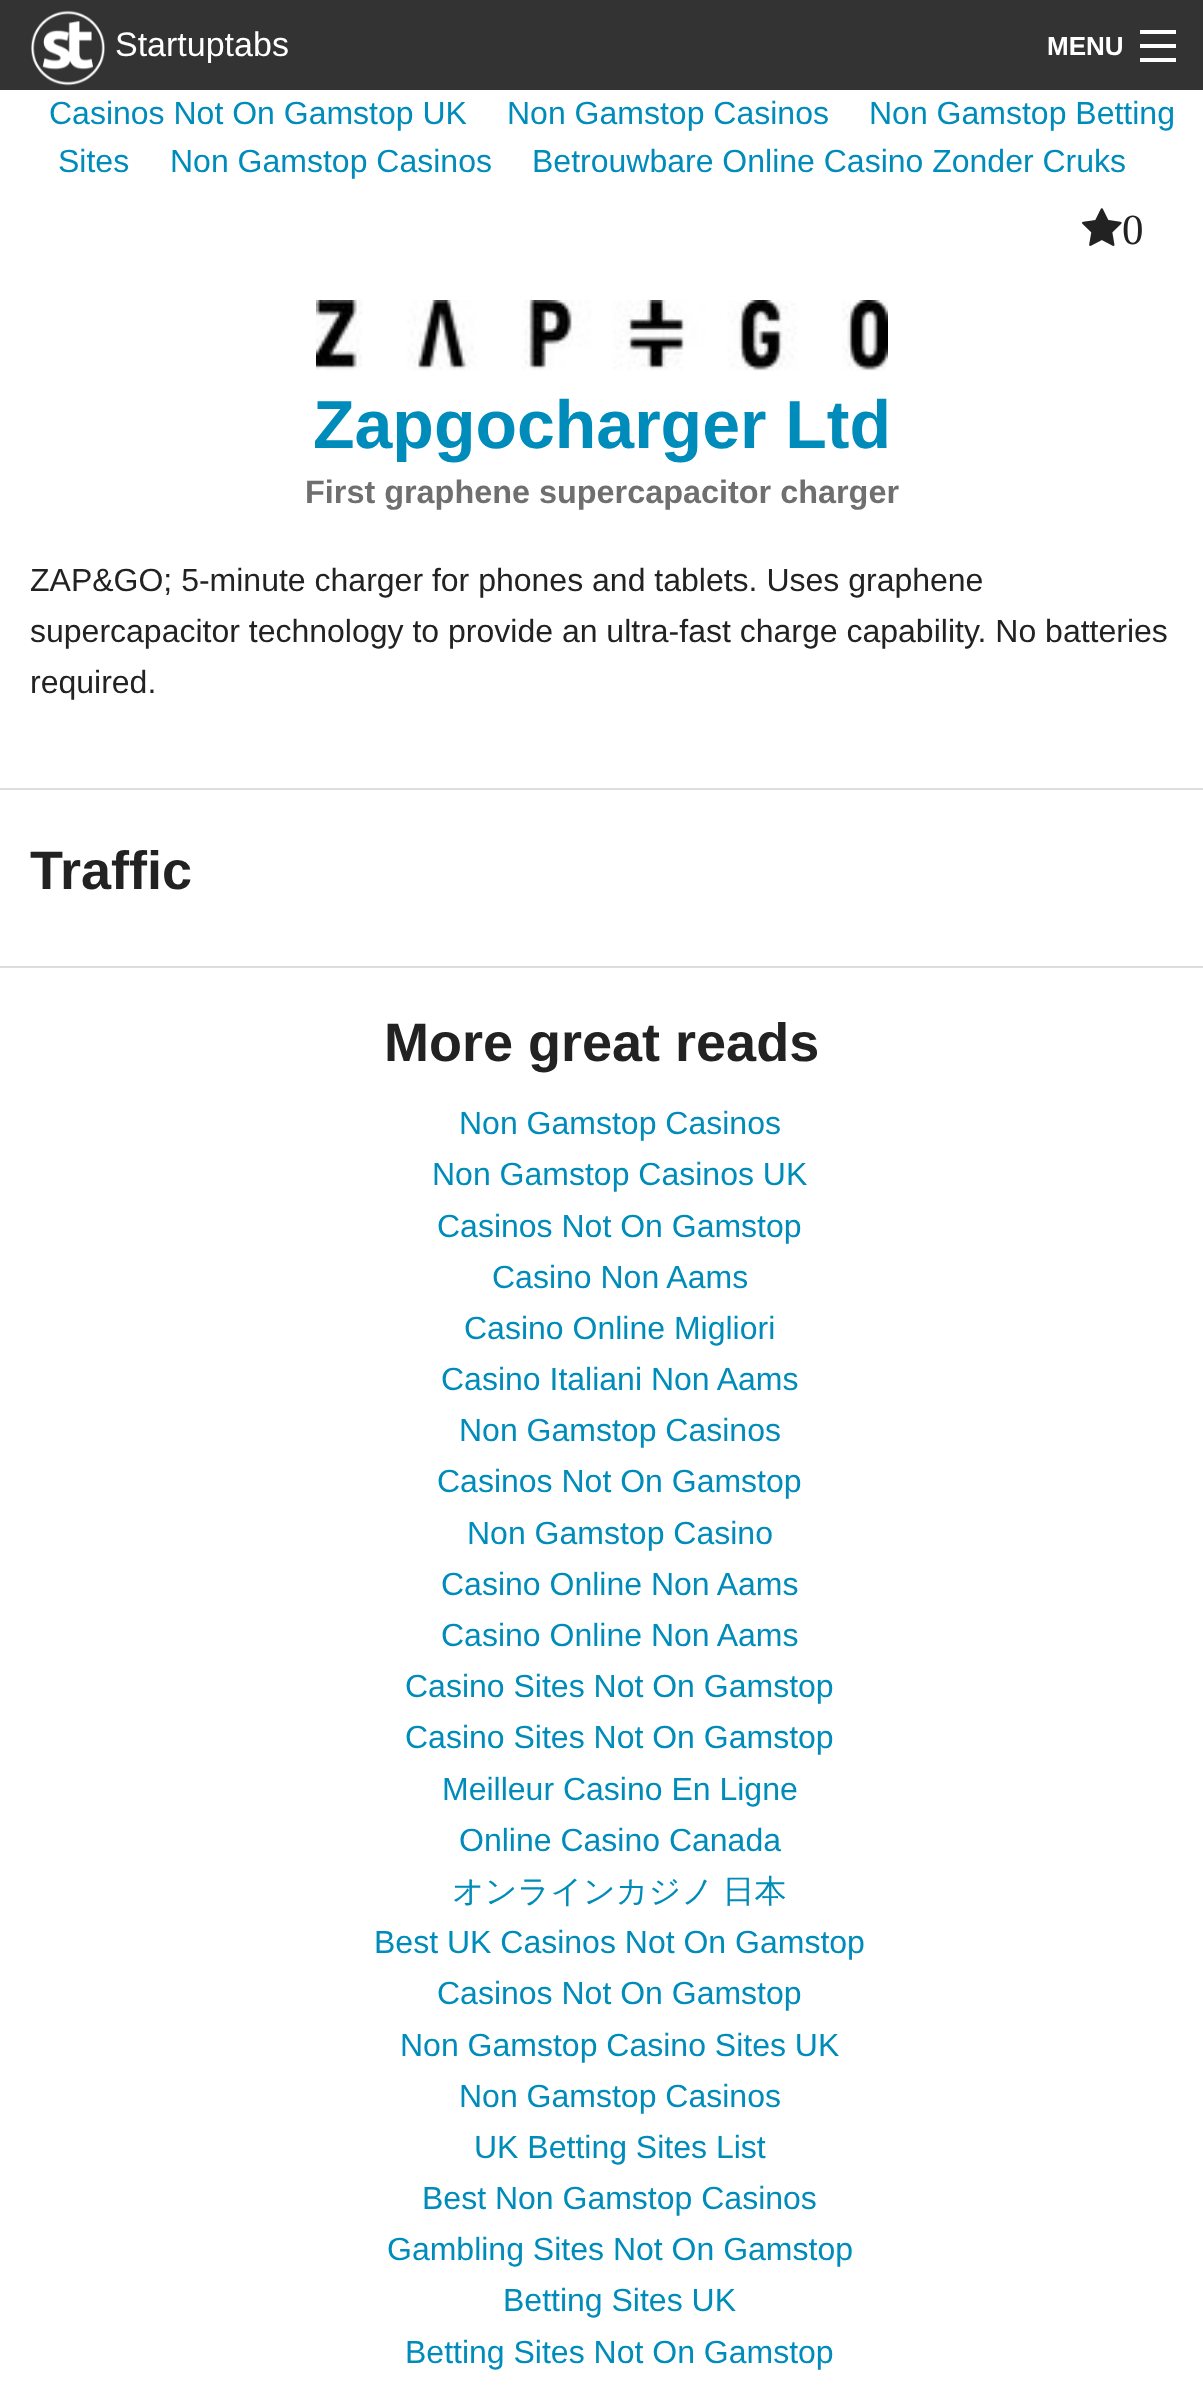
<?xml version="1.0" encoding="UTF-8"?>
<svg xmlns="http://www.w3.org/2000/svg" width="1203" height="2402">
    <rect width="100%" height="100%" fill="#FFFFFF"/>
    <rect x="0" y="0" width="1203" height="90" fill="#333333"/>
    <image x="30" y="10" width="76" height="76" href="img_01.png"/>
    <text x="115" y="56" font-family="Liberation Sans" font-size="34" fill="#FFFFFF">Startuptabs</text>
    <text x="1047" y="55" font-family="Liberation Sans" font-size="26" font-weight="700" fill="#FFFFFF">MENU</text>
    <rect x="1140" y="58" width="36" height="4" fill="#FFFFFF"/>
    <rect x="1140" y="44" width="36" height="4" fill="#FFFFFF"/>
    <rect x="1140" y="30" width="36" height="4" fill="#FFFFFF"/>
    <text x="49" y="124" font-family="Liberation Sans" font-size="32" fill="#008CBA">Casinos Not On Gamstop UK</text>
    <text x="507" y="124" font-family="Liberation Sans" font-size="32" fill="#008CBA">Non Gamstop Casinos</text>
    <text x="869" y="124" font-family="Liberation Sans" font-size="32" fill="#008CBA">Non Gamstop Betting</text>
    <text x="58" y="172" font-family="Liberation Sans" font-size="32" fill="#008CBA">Sites</text>
    <text x="170" y="172" font-family="Liberation Sans" font-size="32" fill="#008CBA">Non Gamstop Casinos</text>
    <text x="532" y="172" font-family="Liberation Sans" font-size="32" fill="#008CBA">Betrouwbare Online Casino Zonder Cruks</text>
    <image x="1082" y="208" width="40" height="38" href="img_02.png"/>
    <text x="1122" y="244" font-family="Liberation Serif" font-size="43" fill="#222222">0</text>
    <image x="316" y="300" width="572" height="71" href="img_03.png"/>
    <text x="313" y="448" font-family="Liberation Sans" font-size="68" font-weight="700" fill="#008CBA">Zapgocharger Ltd</text>
    <text x="305" y="503" font-family="Liberation Sans" font-size="32.4" font-weight="700" fill="#6F6F6F">First graphene supercapacitor charger</text>
    <text font-family="Liberation Sans" font-size="32" fill="#222222">
        <tspan x="30" y="591">ZAP&amp;GO; 5-minute charger for phones and tablets. Uses graphene</tspan>
        <tspan x="30" y="642">supercapacitor technology to provide an ultra-fast charge capability. No batteries</tspan>
        <tspan x="30" y="693">required.</tspan>
    </text>
    <rect x="0" y="788" width="1203" height="2" fill="#DDDDDD"/>
    <text x="30" y="889" font-family="Liberation Sans" font-size="54" font-weight="700" fill="#222222">Traffic</text>
    <rect x="0" y="966" width="1203" height="2" fill="#DDDDDD"/>
    <text x="384" y="1061" font-family="Liberation Sans" font-size="54" font-weight="700" fill="#222222">More great reads</text>
    <text x="459" y="1134" font-family="Liberation Sans" font-size="32" fill="#008CBA">Non Gamstop Casinos</text>
    <text x="432" y="1185" font-family="Liberation Sans" font-size="32" fill="#008CBA">Non Gamstop Casinos UK</text>
    <text x="437" y="1237" font-family="Liberation Sans" font-size="32" fill="#008CBA">Casinos Not On Gamstop</text>
    <text x="492" y="1288" font-family="Liberation Sans" font-size="32" fill="#008CBA">Casino Non Aams</text>
    <text x="464" y="1339" font-family="Liberation Sans" font-size="32" fill="#008CBA">Casino Online Migliori</text>
    <text x="441" y="1390" font-family="Liberation Sans" font-size="32" fill="#008CBA">Casino Italiani Non Aams</text>
    <text x="459" y="1441" font-family="Liberation Sans" font-size="32" fill="#008CBA">Non Gamstop Casinos</text>
    <text x="437" y="1492" font-family="Liberation Sans" font-size="32" fill="#008CBA">Casinos Not On Gamstop</text>
    <text x="467" y="1544" font-family="Liberation Sans" font-size="32" fill="#008CBA">Non Gamstop Casino</text>
    <text font-family="Liberation Sans" font-size="32" fill="#008CBA">
        <tspan x="441" y="1595">Casino Online Non Aams</tspan>
        <tspan x="441" y="1646">Casino Online Non Aams</tspan>
    </text>
    <text font-family="Liberation Sans" font-size="32" fill="#008CBA">
        <tspan x="405" y="1697">Casino Sites Not On Gamstop</tspan>
        <tspan x="405" y="1748">Casino Sites Not On Gamstop</tspan>
    </text>
    <text x="442" y="1800" font-family="Liberation Sans" font-size="32" fill="#008CBA">Meilleur Casino En Ligne</text>
    <text x="459" y="1851" font-family="Liberation Sans" font-size="32" fill="#008CBA">Online Casino Canada</text>
    <text x="452" y="1902" word-spacing="-1" font-family="WenQuanYi Zen Hei" font-size="32" font-weight="500" fill="#008CBA">オンラインカジノ 日本</text>
    <text x="374" y="1953" font-family="Liberation Sans" font-size="32" fill="#008CBA">Best UK Casinos Not On Gamstop</text>
    <text x="437" y="2004" font-family="Liberation Sans" font-size="32" fill="#008CBA">Casinos Not On Gamstop</text>
    <text x="400" y="2056" font-family="Liberation Sans" font-size="32" fill="#008CBA">Non Gamstop Casino Sites UK</text>
    <text x="459" y="2107" font-family="Liberation Sans" font-size="32" fill="#008CBA">Non Gamstop Casinos</text>
    <text x="474" y="2158" font-family="Liberation Sans" font-size="32" fill="#008CBA">UK Betting Sites List</text>
    <text x="422" y="2209" font-family="Liberation Sans" font-size="32" fill="#008CBA">Best Non Gamstop Casinos</text>
    <text x="387" y="2260" font-family="Liberation Sans" font-size="32" fill="#008CBA">Gambling Sites Not On Gamstop</text>
    <text x="503" y="2311" font-family="Liberation Sans" font-size="32" fill="#008CBA">Betting Sites UK</text>
    <text x="405" y="2363" font-family="Liberation Sans" font-size="32" fill="#008CBA">Betting Sites Not On Gamstop</text>
</svg>
